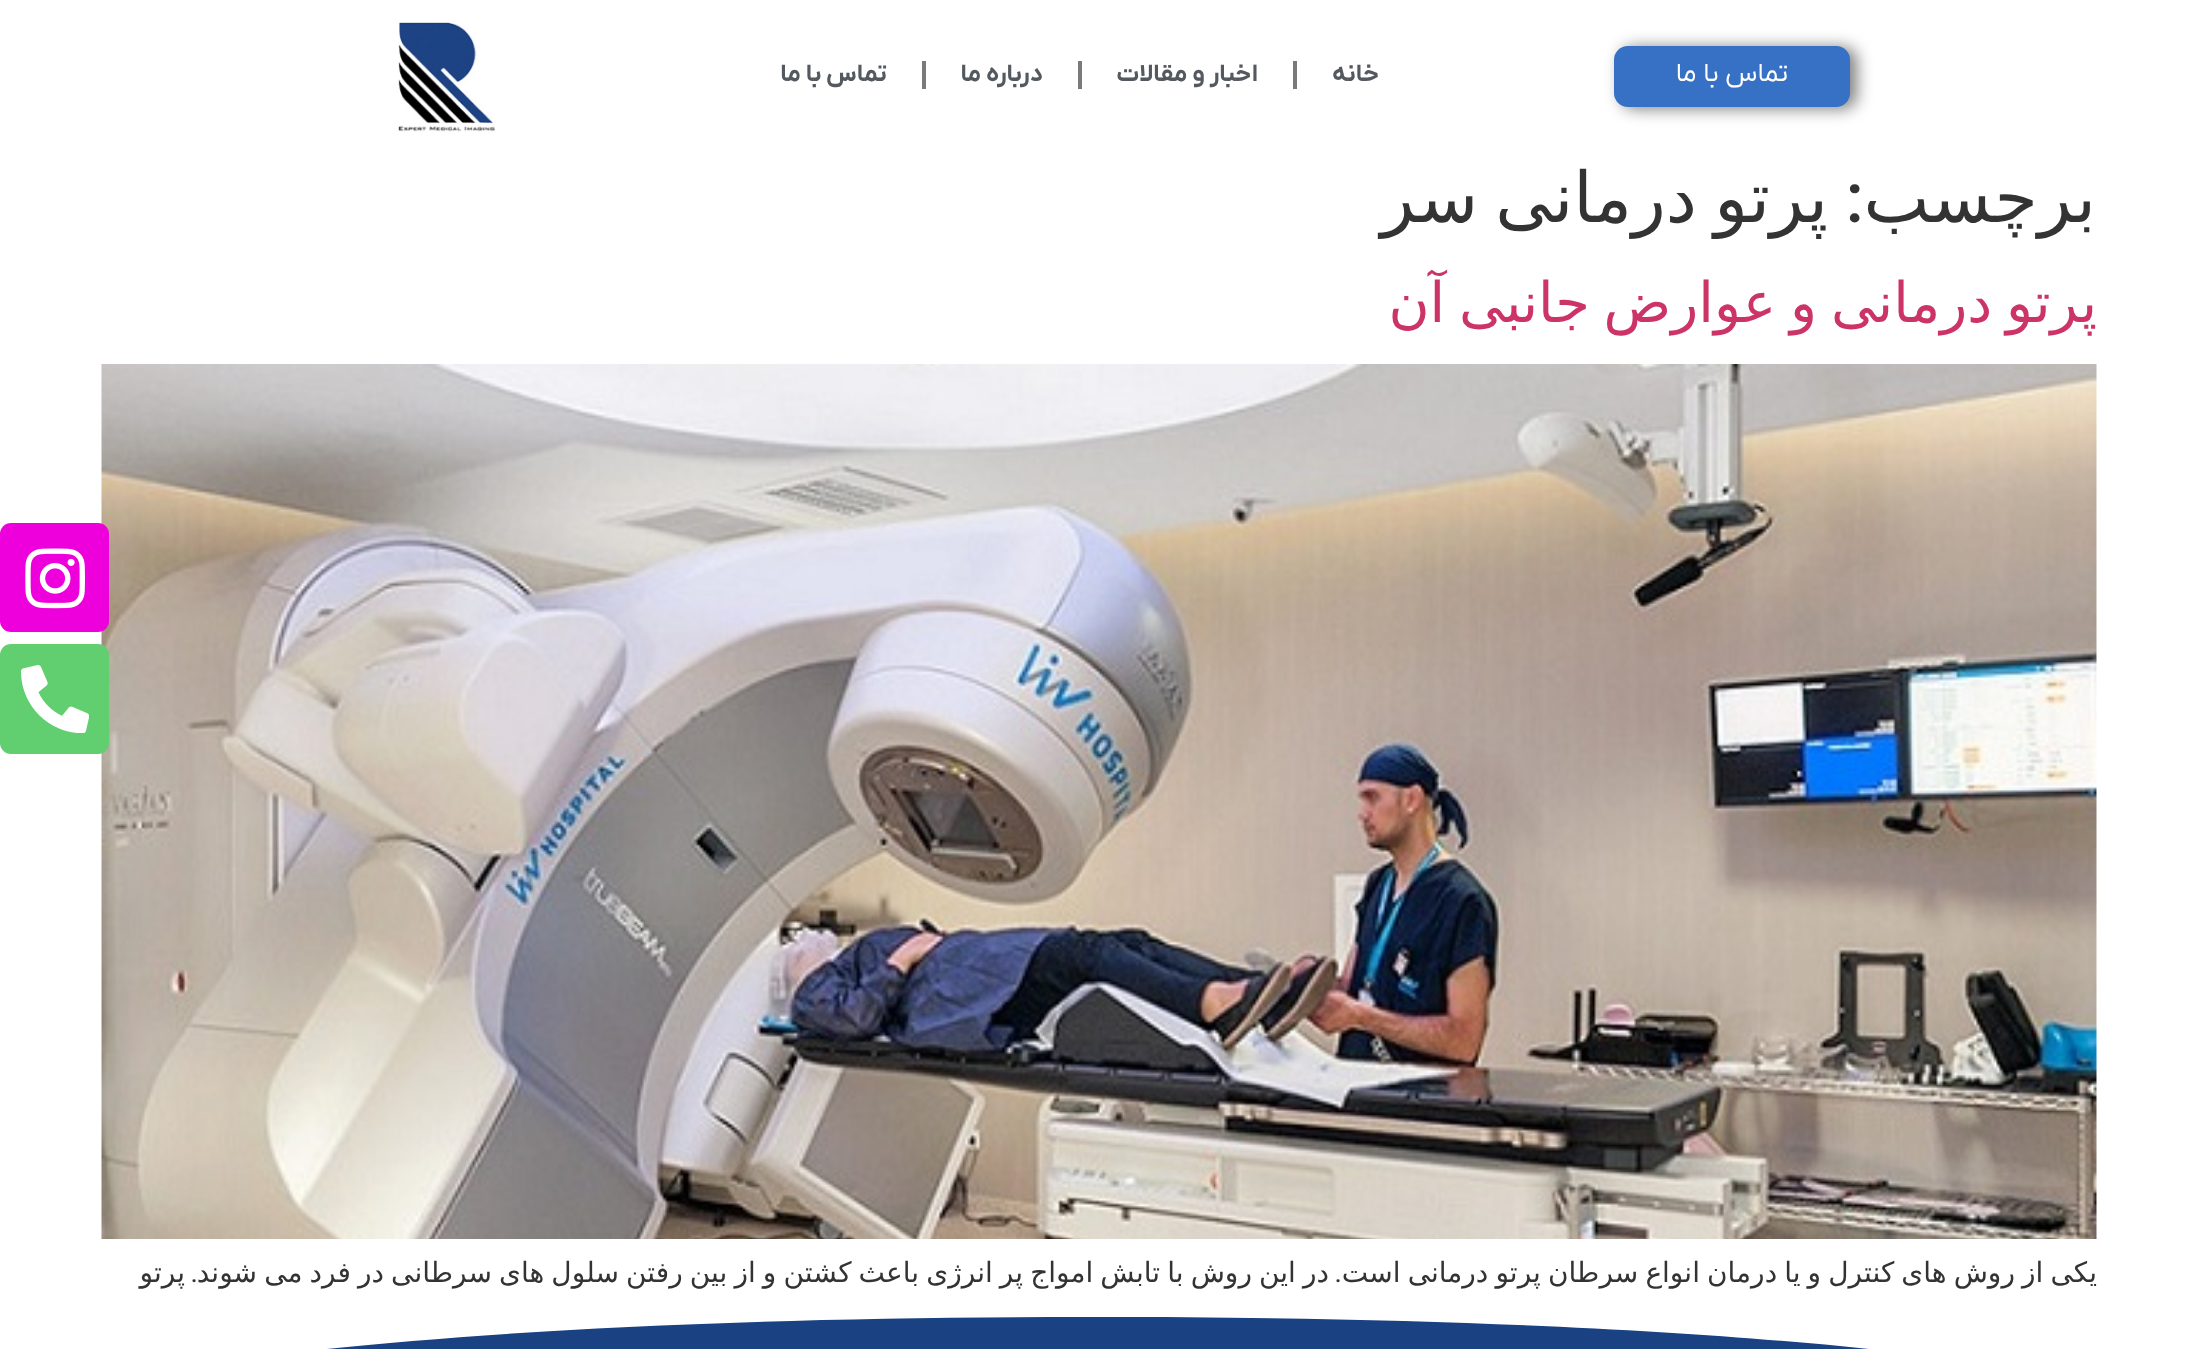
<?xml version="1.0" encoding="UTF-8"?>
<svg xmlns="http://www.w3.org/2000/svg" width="2198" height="1349">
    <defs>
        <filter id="blur1" x="-50%" y="-200%" width="200%" height="500%"><feGaussianBlur stdDeviation="8"/></filter>
    </defs>
    <rect width="100%" height="100%" fill="#FFFFFF"/>
    <rect x="1621" y="47" width="236" height="62" rx="14" fill="#000000" fill-opacity="0.5" filter="url(#blur1)"/>
    <rect x="1614" y="46" width="236" height="61" rx="14" fill="#3771C5"/>
    <text x="1788" y="81" font-family="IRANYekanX" font-size="26.25" direction="rtl" fill="#FFFFFF">تماس با ما</text>
    <text x="1379" y="81" font-family="IRANYekanX" font-size="24.5" font-weight="700" direction="rtl" fill="#54595F">خانه</text>
    <rect x="1293" y="61" width="4" height="28" fill="#7A7A7A"/>
    <text x="1258" y="81" font-family="IRANYekanX" font-size="24.5" font-weight="700" direction="rtl" fill="#54595F">اخبار و مقالات</text>
    <rect x="1078" y="61" width="4" height="28" fill="#7A7A7A"/>
    <text x="1043" y="81" font-family="IRANYekanX" font-size="24.5" font-weight="700" direction="rtl" fill="#54595F">درباره ما</text>
    <rect x="922" y="61" width="4" height="28" fill="#7A7A7A"/>
    <text x="887" y="81" font-family="IRANYekanX" font-size="24.5" font-weight="700" direction="rtl" fill="#54595F">تماس با ما</text>
    <image x="398" y="22" width="98" height="110" href="img_01.png"/>
    <image x="101" y="364" width="1996" height="875" href="img_04.png"/>
    <rect x="0" y="523" width="109" height="109" rx="11" fill="#ED00DC"/>
    <image x="25" y="548" width="60" height="61" href="img_02.png"/>
    <rect x="0" y="644" width="109" height="110" rx="11" fill="#61CE70"/>
    <image x="21" y="665" width="68" height="68" href="img_03.png"/>
    <text x="2096" y="222" font-family="DejaVu Sans" font-size="70" direction="rtl" fill="#333333">برچسب</text>
    <text x="1864" y="222" font-family="Roboto" font-size="70" font-weight="500" direction="rtl" fill="#333333">:</text>
    <text x="1828" y="222" word-spacing="-5" font-family="DejaVu Sans" font-size="70" direction="rtl" fill="#333333">پرتو درمانی سر</text>
    <text x="2097" y="322" word-spacing="-4" font-family="DejaVu Sans" font-size="56" direction="rtl" fill="#CC3366">پرتو درمانی و عوارض جانبی آن</text>
    <text x="2097" y="1282" word-spacing="-1.8" font-family="DejaVu Sans" font-size="28" direction="rtl" fill="#333333">یکی از روش های کنترل و یا درمان انواع سرطان پرتو درمانی است</text>
    <text x="1329" y="1282" word-spacing="-1.8" font-family="DejaVu Sans" font-size="28" direction="rtl" fill="#333333">در این روش با تابش امواج پر انرژی باعث کشتن و از بین رفتن سلول های سرطانی در فرد می شوند</text>
    <text x="198" y="1282" font-family="Roboto" font-size="28" direction="rtl" fill="#333333">.</text>
    <text x="185" y="1282" font-family="DejaVu Sans" font-size="28" direction="rtl" fill="#333333">پرتو</text>
    <text x="1342" y="1282" font-family="Roboto" font-size="28" direction="rtl" fill="#333333">.</text>
    <rect x="327" y="1317" width="1542" height="32" fill="#1A4182"/>
    <path d="M 1099 1317 C 1920 1317 2197 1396 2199 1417 V 1314 H -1 V 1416 C -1 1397 278 1316 1099 1317 Z" fill="#FFFFFF"/>
</svg>
